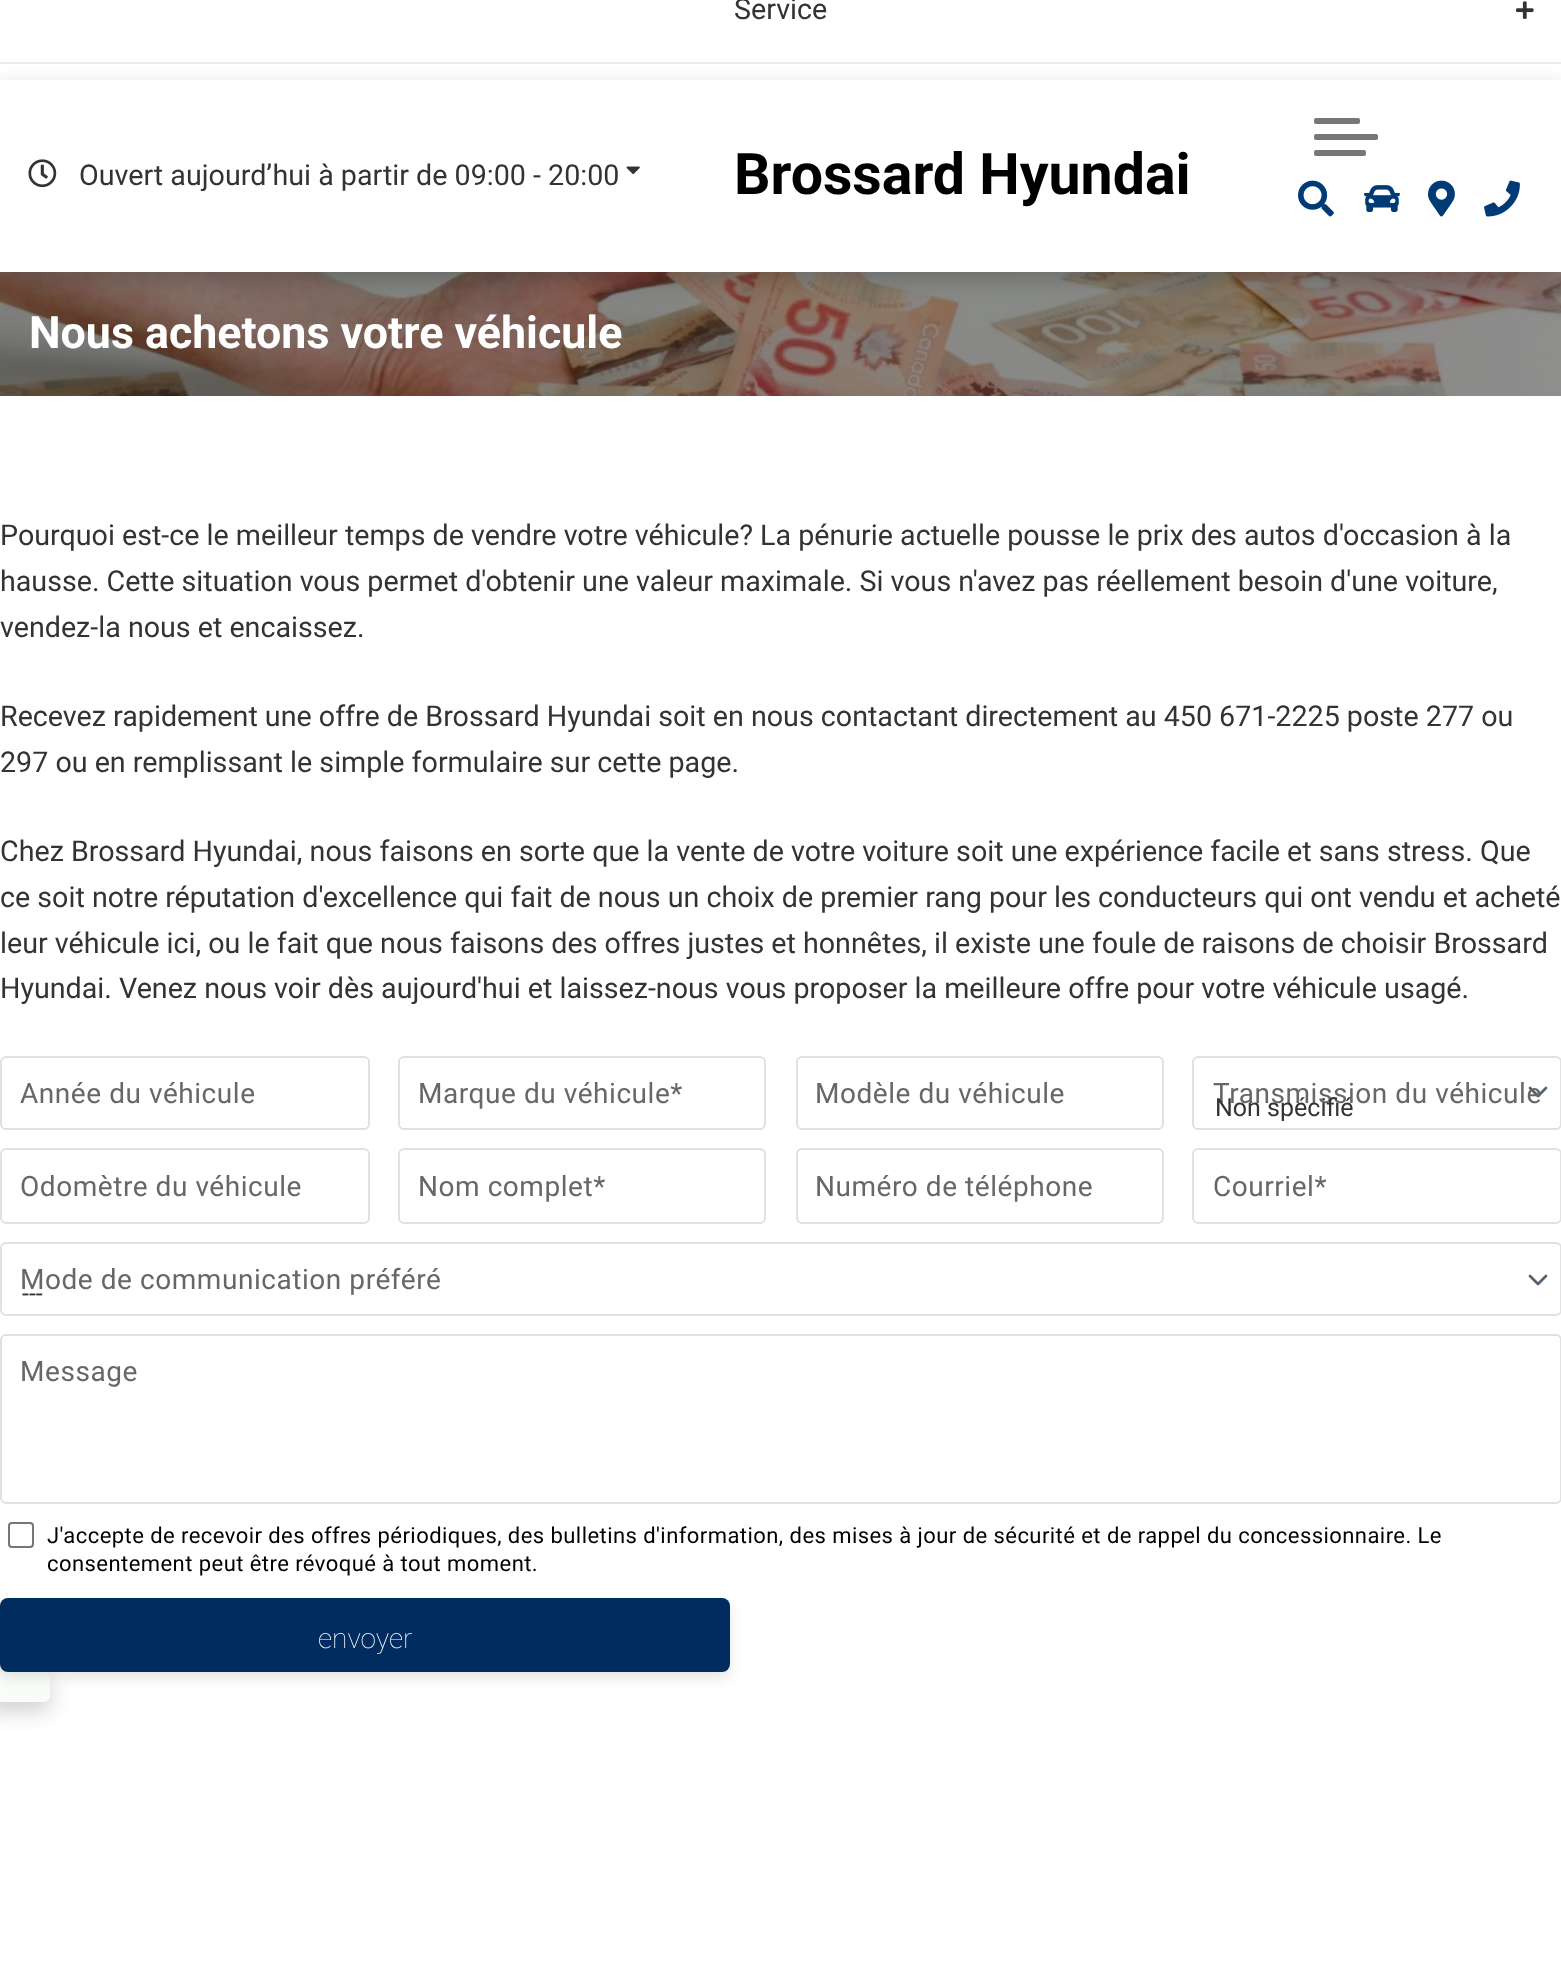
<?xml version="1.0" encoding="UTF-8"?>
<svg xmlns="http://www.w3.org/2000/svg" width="1561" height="1972">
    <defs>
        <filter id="blur1" x="-50%" y="-200%" width="200%" height="500%"><feGaussianBlur stdDeviation="11"/></filter>
        <clipPath id="clip1"><path d="M 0 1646 H 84 V 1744 H 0 Z M -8 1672 H 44 C 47.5 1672 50 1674.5 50 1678 V 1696 C 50 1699.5 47.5 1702 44 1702 H -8 C -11.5 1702 -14 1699.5 -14 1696 V 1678 C -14 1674.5 -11.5 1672 -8 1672 Z" clip-rule="evenodd"/></clipPath>
        <filter id="blur2" x="-50%" y="-200%" width="200%" height="500%"><feGaussianBlur stdDeviation="7"/></filter>
    </defs>
    <rect width="100%" height="100%" fill="#FFFFFF"/>
    <rect x="0" y="62" width="1561" height="2" fill="#ECECEC"/>
    <text x="734" y="19" font-family="Roboto" font-size="28.67" fill="#333333">Service</text>
    <image x="1516" y="1" width="18" height="18" href="img_01.png"/>
    <image x="0" y="272" width="1561" height="124" href="img_08.png"/>
    <rect x="0" y="88" width="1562" height="192" fill="#000000" fill-opacity="0.2" filter="url(#blur1)"/>
    <rect x="0" y="80" width="1561" height="192" fill="#FFFFFF"/>
    <image x="28" y="159" width="29" height="29" href="img_02.png"/>
    <text x="79" y="185" font-family="Roboto" font-size="28.67" fill="#333333">Ouvert aujourd’hui à partir de 09:00 - 20:00</text>
    <image x="626" y="166" width="14" height="9" href="img_03.png"/>
    <text x="734" y="194" font-family="Roboto" font-size="57.25" font-weight="700" fill="#000000">Brossard Hyundai</text>
    <rect x="1314" y="134" width="64" height="6" rx="2" fill="#777777"/>
    <rect x="1314" y="118" width="46" height="6" rx="2" fill="#777777"/>
    <rect x="1314" y="150" width="52" height="6" rx="2" fill="#777777"/>
    <image x="1298" y="180" width="36" height="37" href="img_04.png"/>
    <image x="1364" y="185" width="36" height="27" href="img_05.png"/>
    <image x="1428" y="180" width="27" height="37" href="img_06.png"/>
    <image x="1484" y="180" width="36" height="37" href="img_07.png"/>
    <text x="29" y="348" font-family="Roboto" font-size="44.75" font-weight="700" fill="#FFFFFF">Nous achetons votre véhicule</text>
    <text font-family="Roboto" font-size="28.67" fill="#333333">
        <tspan x="0" y="545">Pourquoi est-ce le meilleur temps de vendre votre véhicule? La pénurie actuelle pousse le prix des autos d'occasion à la</tspan>
        <tspan x="0" y="591">hausse. Cette situation vous permet d'obtenir une valeur maximale. Si vous n'avez pas réellement besoin d'une voiture,</tspan>
        <tspan x="0" y="637">vendez-la nous et encaissez.</tspan>
    </text>
    <text font-family="Roboto" font-size="28.67" fill="#333333">
        <tspan x="0" y="726">Recevez rapidement une offre de Brossard Hyundai soit en nous contactant directement au 450 671-2225 poste 277 ou</tspan>
        <tspan x="0" y="772">297 ou en remplissant le simple formulaire sur cette page.</tspan>
    </text>
    <text font-family="Roboto" font-size="28.67" fill="#333333">
        <tspan x="0" y="861">Chez Brossard Hyundai, nous faisons en sorte que la vente de votre voiture soit une expérience facile et sans stress. Que</tspan>
        <tspan x="0" y="907">ce soit notre réputation d'excellence qui fait de nous un choix de premier rang pour les conducteurs qui ont vendu et acheté</tspan>
        <tspan x="0" y="953">leur véhicule ici, ou le fait que nous faisons des offres justes et honnêtes, il existe une foule de raisons de choisir Brossard</tspan>
        <tspan x="0" y="998">Hyundai. Venez nous voir dès aujourd'hui et laissez-nous vous proposer la meilleure offre pour votre véhicule usagé.</tspan>
    </text>
    <rect x="1" y="1057" width="368" height="72" rx="5" fill="none" stroke="#E1E1E1" stroke-width="2"/>
    <text x="20" y="1103" font-family="Roboto" font-size="28" letter-spacing="0.55" fill="#676767">Année du véhicule</text>
    <rect x="399" y="1057" width="366" height="72" rx="5" fill="none" stroke="#E1E1E1" stroke-width="2"/>
    <text x="418" y="1103" font-family="Roboto" font-size="28" letter-spacing="0.55" fill="#676767">Marque du véhicule*</text>
    <rect x="797" y="1057" width="366" height="72" rx="5" fill="none" stroke="#E1E1E1" stroke-width="2"/>
    <text x="815" y="1103" font-family="Roboto" font-size="28" letter-spacing="0.55" fill="#676767">Modèle du véhicule</text>
    <path d="M 1530 1088 L 1538 1096 L 1546 1088" fill="none" stroke="#55636E" stroke-width="2.7" stroke-linecap="round" stroke-linejoin="round"/>
    <rect x="1193" y="1057" width="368" height="72" rx="5" fill="none" stroke="#E1E1E1" stroke-width="2"/>
    <text x="1213" y="1103" font-family="Roboto" font-size="28" letter-spacing="0.55" fill="#676767">Transmission du véhicule</text>
    <text x="1215" y="1116" font-family="Roboto" font-size="25" fill="#333333">Non spécifié</text>
    <rect x="1" y="1149" width="368" height="74" rx="5" fill="none" stroke="#E1E1E1" stroke-width="2"/>
    <text x="20" y="1196" font-family="Roboto" font-size="28" letter-spacing="0.55" fill="#676767">Odomètre du véhicule</text>
    <rect x="399" y="1149" width="366" height="74" rx="5" fill="none" stroke="#E1E1E1" stroke-width="2"/>
    <text x="418" y="1196" font-family="Roboto" font-size="28" letter-spacing="0.55" fill="#676767">Nom complet*</text>
    <rect x="797" y="1149" width="366" height="74" rx="5" fill="none" stroke="#E1E1E1" stroke-width="2"/>
    <text x="815" y="1196" font-family="Roboto" font-size="28" letter-spacing="0.55" fill="#676767">Numéro de téléphone</text>
    <rect x="1193" y="1149" width="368" height="74" rx="5" fill="none" stroke="#E1E1E1" stroke-width="2"/>
    <text x="1213" y="1196" font-family="Roboto" font-size="28" letter-spacing="0.55" fill="#676767">Courriel*</text>
    <path d="M 1530 1276 L 1538 1284 L 1546 1276" fill="none" stroke="#55636E" stroke-width="2.7" stroke-linecap="round" stroke-linejoin="round"/>
    <rect x="1" y="1243" width="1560" height="72" rx="5" fill="none" stroke="#E1E1E1" stroke-width="2"/>
    <text x="22" y="1302" font-family="Roboto" font-size="25" fill="#333333">---</text>
    <text x="20" y="1289" font-family="Roboto" font-size="28" letter-spacing="0.55" fill="#676767">Mode de communication préféré</text>
    <rect x="1" y="1335" width="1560" height="168" rx="5" fill="none" stroke="#E1E1E1" stroke-width="2"/>
    <text x="20" y="1381" font-family="Roboto" font-size="28" letter-spacing="0.55" fill="#676767">Message</text>
    <rect x="9" y="1523" width="24" height="24" rx="3" fill="none" stroke="#767676" stroke-width="2"/>
    <text font-family="Roboto" font-size="22" letter-spacing="0.44" fill="#000000">
        <tspan x="47" y="1543">J'accepte de recevoir des offres périodiques, des bulletins d'information, des mises à jour de sécurité et de rappel du concessionnaire. Le</tspan>
        <tspan x="47" y="1571">consentement peut être révoqué à tout moment.</tspan>
    </text>
    <g clip-path="url(#clip1)">
        <rect x="-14" y="1680" width="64" height="30" rx="6" fill="#000000" fill-opacity="0.2" filter="url(#blur1)"/>
    </g>
    <rect x="0" y="1672" width="50" height="30" fill="#6BBF49" fill-opacity="0.04"/>
    <rect x="0" y="1604" width="730" height="74" rx="8" fill="#000000" fill-opacity="0.1" filter="url(#blur2)"/>
    <rect x="0" y="1598" width="730" height="74" rx="8" fill="#002C5F"/>
    <text x="318" y="1648" font-family="Roboto" font-size="28" font-weight="100" fill="#FFFFFF">envoyer</text>
</svg>
